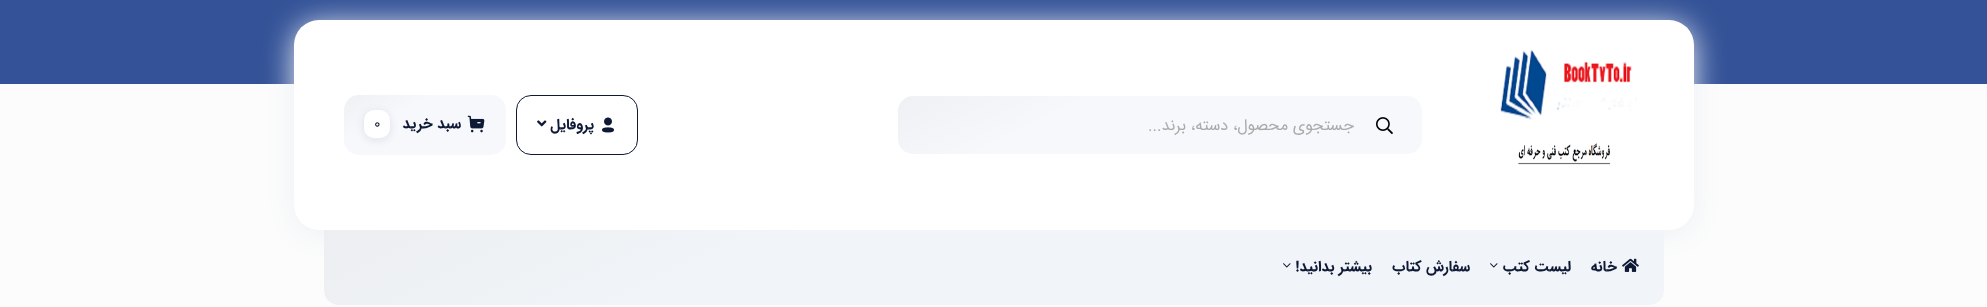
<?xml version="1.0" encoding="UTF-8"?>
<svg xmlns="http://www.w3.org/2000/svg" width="1987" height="307">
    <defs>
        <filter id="blur1" x="-50%" y="-200%" width="200%" height="500%"><feGaussianBlur stdDeviation="15"/></filter>
        <linearGradient id="g1" gradientUnits="userSpaceOnUse" x1="1223" y1="252" x2="1080" y2="-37"><stop offset="0.6" stop-color="#F6F8FB"/><stop offset="1" stop-color="#EBEDF0"/></linearGradient>
        <linearGradient id="g2" gradientUnits="userSpaceOnUse" x1="453" y1="181" x2="390" y2="54"><stop offset="0.6" stop-color="#F6F8FB"/><stop offset="1" stop-color="#EBEDF0"/></linearGradient>
        <filter id="blur2" x="-50%" y="-200%" width="200%" height="500%"><feGaussianBlur stdDeviation="4"/></filter>
        <linearGradient id="g3" gradientUnits="userSpaceOnUse" x1="1141" y1="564" x2="808" y2="-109"><stop offset="0.6" stop-color="#F1F4F8"/><stop offset="1" stop-color="#EAECEE"/></linearGradient>
    </defs>
    <rect width="100%" height="100%" fill="#FCFCFC"/>
    <rect x="0" y="0" width="1987" height="84" fill="#335297"/>
    <rect x="294" y="24" width="1400" height="210" rx="25" fill="#EDF0F5" filter="url(#blur1)"/>
    <rect x="294" y="20" width="1400" height="210" rx="25" fill="#FFFFFF"/>
    <image x="1500" y="50" width="137" height="115" href="img_01.png"/>
    <rect x="898" y="96" width="524" height="58" rx="15" fill="url(#g1)"/>
    <image x="1376" y="117" width="17" height="18" href="img_02.png"/>
    <text x="1354" y="130" font-family="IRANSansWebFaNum" font-size="16" direction="rtl" fill="#AAAAAA">جستجوی محصول، دسته، برند...</text>
    <rect x="516.5" y="95.5" width="121" height="59" rx="14.5" fill="none" stroke="#0E1935"/>
    <image x="602" y="117" width="12" height="16" href="img_03.png"/>
    <text x="594" y="129" font-family="IRANSansWebFaNum" font-size="15" font-weight="700" direction="rtl" fill="#0E1935">پروفایل</text>
    <image x="537" y="120" width="10" height="7" href="img_04.png"/>
    <rect x="344" y="95" width="162" height="60" rx="15" fill="url(#g2)"/>
    <image x="467" y="115" width="18" height="18" href="img_05.png"/>
    <text x="461" y="128" font-family="IRANSansWebFaNum" font-size="15" font-weight="700" direction="rtl" fill="#0E1935">سبد خرید</text>
    <rect x="364" y="112" width="26" height="28" rx="10" fill="#0D3B5E" fill-opacity="0.1" filter="url(#blur2)"/>
    <rect x="364" y="110" width="26" height="28" rx="10" fill="#FFFFFF"/>
    <text x="374" y="128" font-family="IRANSansWebFaNum" font-size="15" fill="#0E1935">0</text>
    <path d="M 324 230 H 1664 V 290 C 1664 298.5 1657.5 305 1649 305 H 339 C 330.5 305 324 298.5 324 290 Z" fill="url(#g3)"/>
    <image x="1622" y="258" width="17" height="14" href="img_06.png"/>
    <text x="1617" y="271" font-family="IRANSansWebFaNum" font-size="15" font-weight="700" direction="rtl" fill="#0E1935">خانه</text>
    <text x="1571" y="271" font-family="IRANSansWebFaNum" font-size="15" font-weight="700" direction="rtl" fill="#0E1935">لیست کتب</text>
    <image x="1490" y="263" width="8" height="5" href="img_07.png"/>
    <text x="1470" y="271" font-family="IRANSansWebFaNum" font-size="15" font-weight="700" direction="rtl" fill="#0E1935">سفارش کتاب</text>
    <text x="1372" y="271" font-family="IRANSansWebFaNum" font-size="15" font-weight="700" direction="rtl" fill="#0E1935">بیشتر بدانید!</text>
    <image x="1283" y="263" width="8" height="5" href="img_07.png"/>
</svg>
